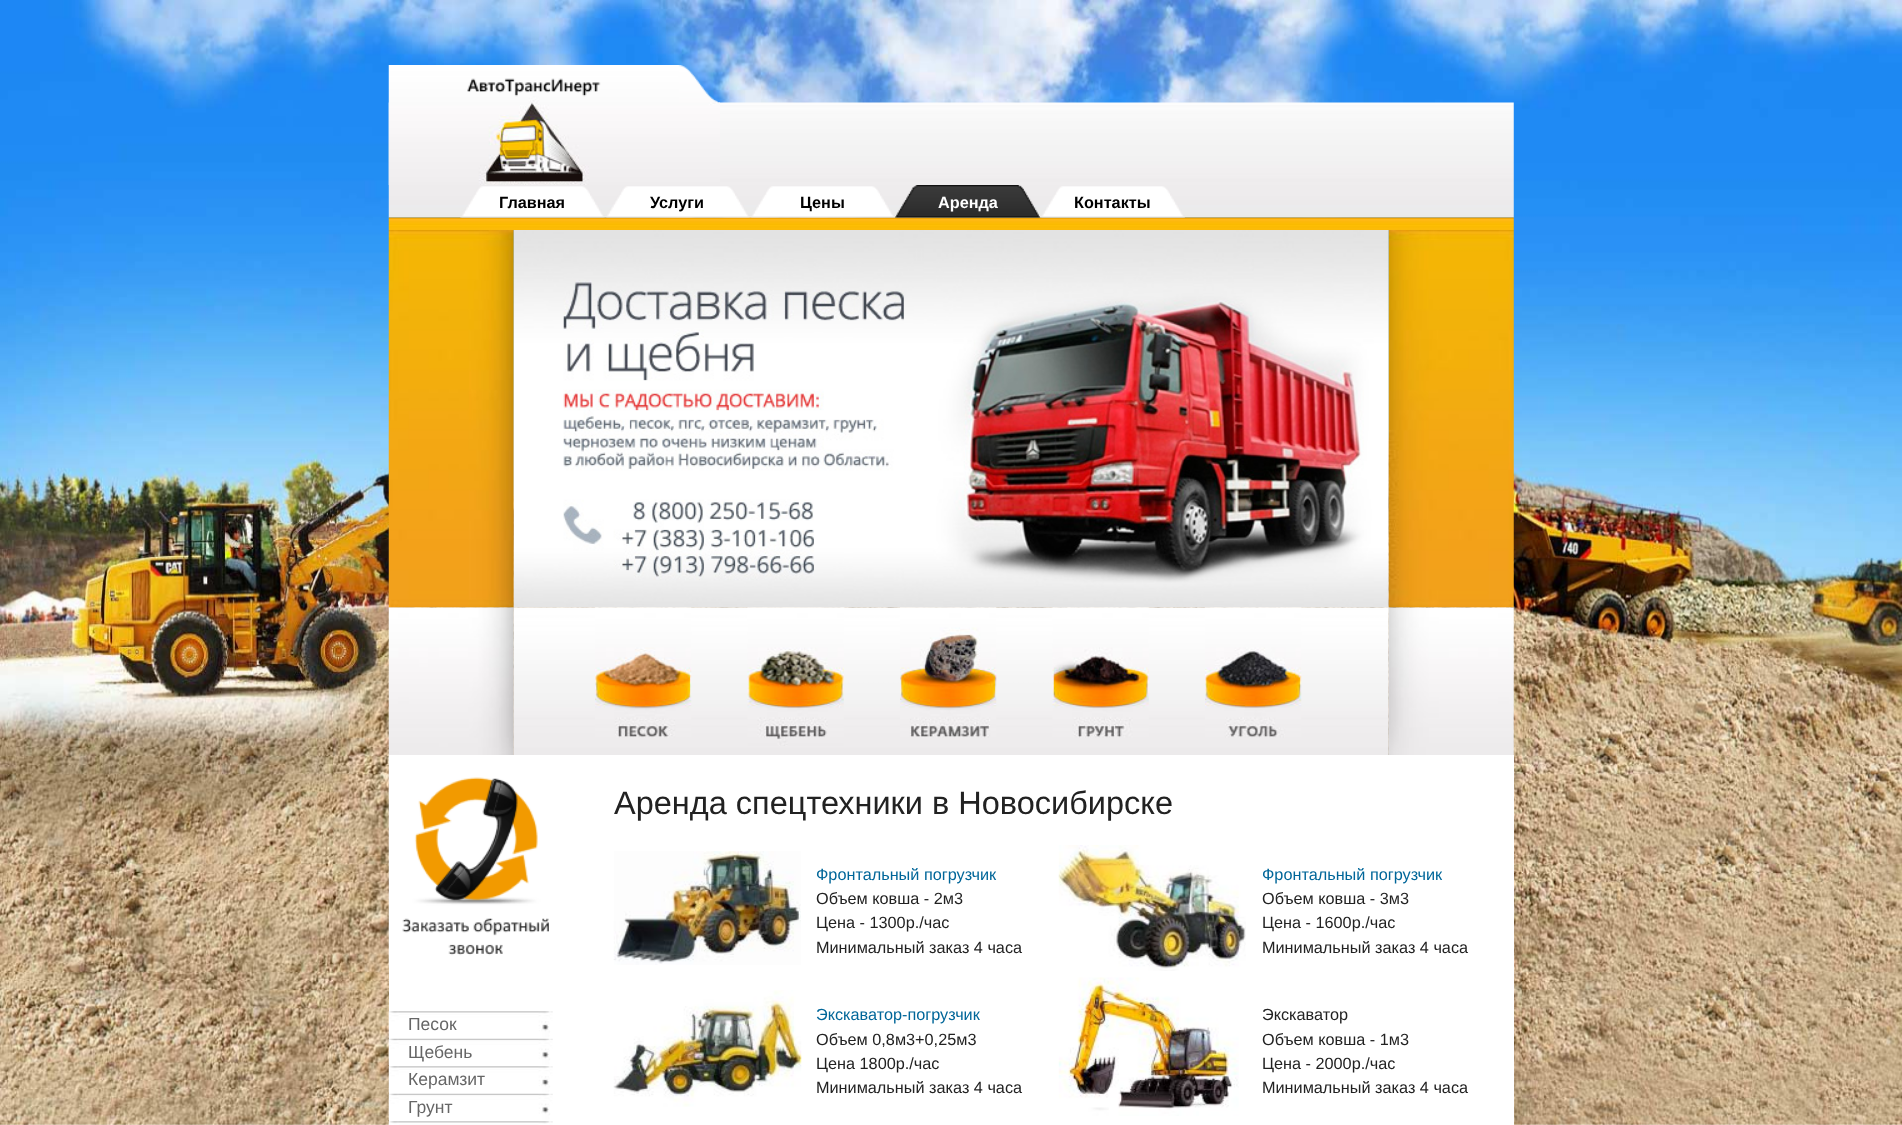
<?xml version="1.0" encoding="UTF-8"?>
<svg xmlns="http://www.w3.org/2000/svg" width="1902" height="1125">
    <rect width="100%" height="100%" fill="#FFFFFF"/>
    <image x="0" y="0" width="1902" height="1125" href="img_01.png"/>
    <image x="388" y="102" width="1126" height="83" href="img_02.png"/>
    <image x="388" y="65" width="332" height="120" href="img_03.png"/>
    <image x="388" y="185" width="1126" height="33" href="img_04.png"/>
    <image x="388" y="217" width="1126" height="13" href="img_10.png"/>
    <image x="460" y="186" width="145" height="32" href="img_05.png"/>
    <text x="499" y="208" font-family="Liberation Sans" font-size="16.25" font-weight="700" fill="#000000">Главная</text>
    <image x="605" y="186" width="145" height="32" href="img_06.png"/>
    <text x="650" y="208" font-family="Liberation Sans" font-size="16.25" font-weight="700" fill="#000000">Услуги</text>
    <image x="750" y="186" width="145" height="32" href="img_07.png"/>
    <text x="800" y="208" font-family="Liberation Sans" font-size="16.25" font-weight="700" fill="#000000">Цены</text>
    <image x="895" y="185" width="145" height="33" href="img_08.png"/>
    <text x="938" y="208" font-family="Liberation Sans" font-size="16.25" font-weight="700" fill="#FFFFFF">Аренда</text>
    <image x="1040" y="186" width="145" height="32" href="img_09.png"/>
    <text x="1074" y="208" font-family="Liberation Sans" font-size="16.25" font-weight="700" fill="#000000">Контакты</text>
    <image x="388" y="230" width="126" height="378" href="img_11.png"/>
    <image x="513" y="230" width="876" height="378" href="img_12.png"/>
    <image x="1388" y="230" width="126" height="378" href="img_13.png"/>
    <image x="388" y="607" width="126" height="148" href="img_14.png"/>
    <image x="513" y="607" width="876" height="148" href="img_15.png"/>
    <image x="595" y="607" width="97" height="131" href="img_16.png"/>
    <image x="747" y="607" width="97" height="139" href="img_17.png"/>
    <image x="900" y="607" width="97" height="131" href="img_18.png"/>
    <image x="1052" y="607" width="97" height="131" href="img_19.png"/>
    <image x="1205" y="607" width="97" height="131" href="img_20.png"/>
    <image x="1388" y="607" width="126" height="148" href="img_21.png"/>
    <rect x="389" y="755" width="1125" height="370" fill="#FFFFFF"/>
    <image x="388" y="755" width="161" height="213" href="img_22.png"/>
    <image x="388" y="1011" width="165" height="27" href="img_23.png"/>
    <text x="408" y="1030" font-family="Liberation Sans" font-size="17.5" fill="#666666">Песок</text>
    <image x="388" y="1038" width="165" height="27" href="img_24.png"/>
    <text x="408" y="1058" font-family="Liberation Sans" font-size="17.5" fill="#666666">Щебень</text>
    <image x="388" y="1066" width="165" height="27" href="img_25.png"/>
    <text x="408" y="1085" font-family="Liberation Sans" font-size="17.5" fill="#666666">Керамзит</text>
    <image x="388" y="1093" width="165" height="27" href="img_26.png"/>
    <text x="408" y="1113" font-family="Liberation Sans" font-size="17.5" fill="#666666">Грунт</text>
    <image x="388" y="1121" width="165" height="4" href="img_27.png"/>
    <text x="614" y="814" font-family="Liberation Sans" font-size="32.5" fill="#222222">Аренда спецтехники в Новосибирске</text>
    <image x="613" y="851" width="188" height="114" href="img_28.png"/>
    <text x="816" y="880" font-family="Liberation Sans" font-size="16.25" fill="#006699">Фронтальный погрузчик</text>
    <text font-family="Liberation Sans" font-size="16.25" fill="#222222">
        <tspan x="816" y="904">Объем ковша - 2м3</tspan>
        <tspan x="816" y="928">Цена - 1300р./час</tspan>
        <tspan x="816" y="953">Минимальный заказ 4 часа</tspan>
    </text>
    <image x="1058" y="845" width="188" height="126" href="img_29.png"/>
    <text x="1262" y="880" font-family="Liberation Sans" font-size="16.25" fill="#006699">Фронтальный погрузчик</text>
    <text font-family="Liberation Sans" font-size="16.25" fill="#222222">
        <tspan x="1262" y="904">Объем ковша - 3м3</tspan>
        <tspan x="1262" y="928">Цена - 1600р./час</tspan>
        <tspan x="1262" y="953">Минимальный заказ 4 часа</tspan>
    </text>
    <image x="613" y="990" width="189" height="117" href="img_30.png"/>
    <text x="816" y="1020" font-family="Liberation Sans" font-size="16.25" fill="#006699">Экскаватор-погрузчик</text>
    <text font-family="Liberation Sans" font-size="16.25" fill="#222222">
        <tspan x="816" y="1045">Объем 0,8м3+0,25м3</tspan>
        <tspan x="816" y="1069">Цена 1800р./час</tspan>
        <tspan x="816" y="1093">Минимальный заказ 4 часа</tspan>
    </text>
    <image x="1058" y="977" width="181" height="139" href="img_31.png"/>
    <text font-family="Liberation Sans" font-size="16.25" fill="#222222">
        <tspan x="1262" y="1020">Экскаватор</tspan>
        <tspan x="1262" y="1045">Объем ковша - 1м3</tspan>
        <tspan x="1262" y="1069">Цена - 2000р./час</tspan>
        <tspan x="1262" y="1093">Минимальный заказ 4 часа</tspan>
    </text>
</svg>
